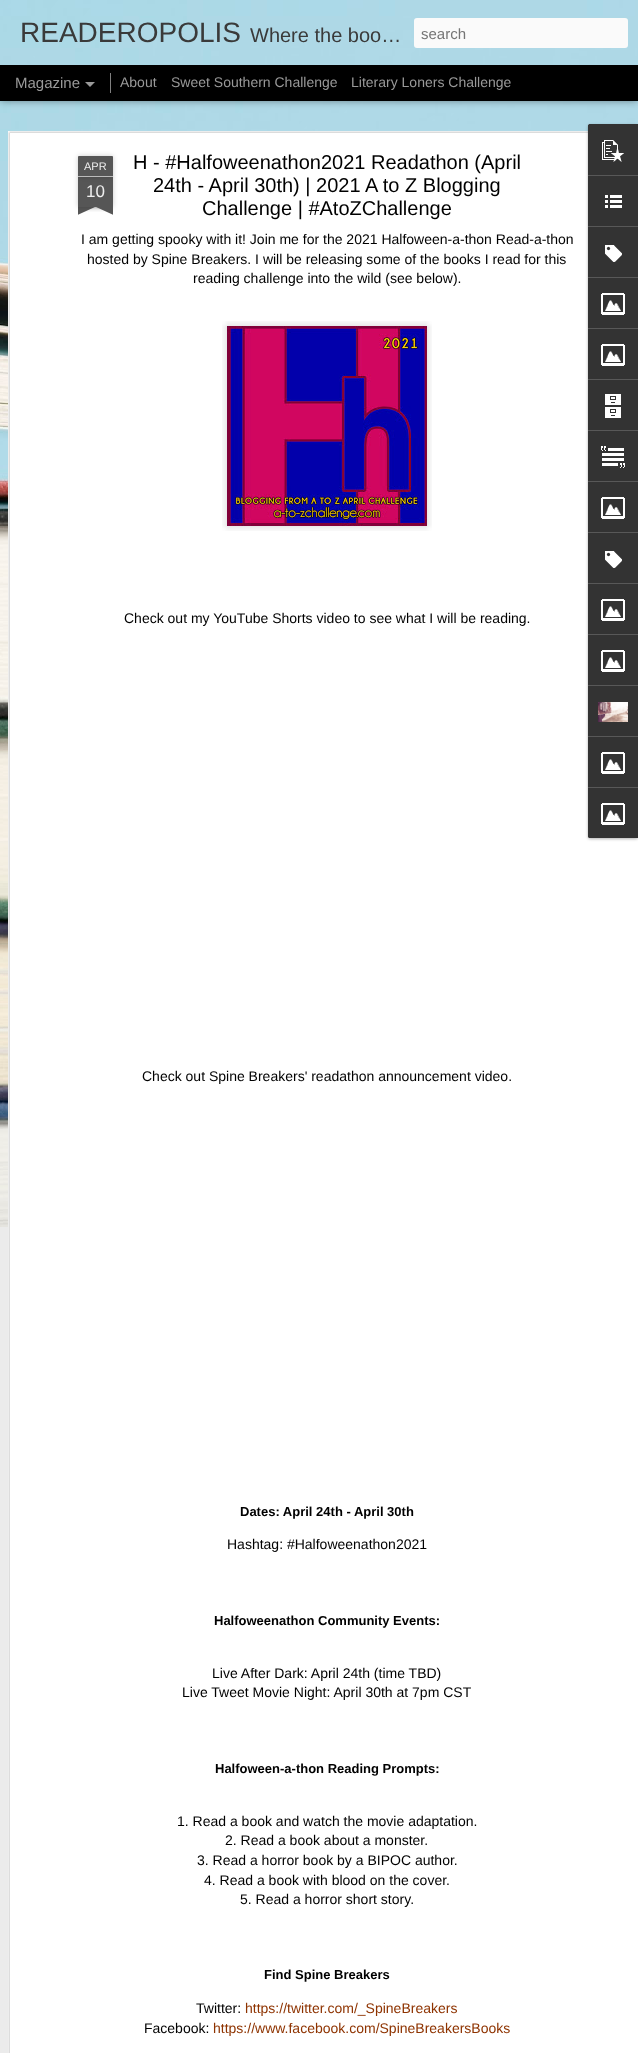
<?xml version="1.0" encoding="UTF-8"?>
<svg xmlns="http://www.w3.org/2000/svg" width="638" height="2053">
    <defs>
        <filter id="blur1" x="-50%" y="-200%" width="200%" height="500%"><feGaussianBlur stdDeviation="4"/></filter>
        <filter id="blur2" x="-50%" y="-200%" width="200%" height="500%"><feGaussianBlur stdDeviation="2.5"/></filter>
        <clipPath id="clip1"><rect x="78" y="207" width="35" height="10"/></clipPath>
        <clipPath id="clip2"><rect x="78" y="207" width="35" height="10"/></clipPath>
        <filter id="blur3" x="-50%" y="-200%" width="200%" height="500%"><feGaussianBlur stdDeviation="1.5"/></filter>
    </defs>
    <rect width="100%" height="100%" fill="#000000"/>
    <image x="0" y="101" width="638" height="1126" href="img_02.png"/>
    <rect x="0" y="65" width="638" height="35" fill="#000000" fill-opacity="0.5" filter="url(#blur1)"/>
    <image x="0" y="0" width="638" height="65" href="img_01.png"/>
    <text x="20" y="42" font-family="Liberation Sans" font-size="28" fill="#3A3A3A">READEROPOLIS</text>
    <text x="250" y="42" font-family="Liberation Sans" font-size="20" fill="#3A3A3A">Where the boo…</text>
    <rect x="414" y="18" width="214" height="30" rx="3" fill="#FAFAFA"/>
    <text x="421" y="39" font-family="Liberation Sans" font-size="15" fill="#757575">search</text>
    <text x="15" y="88" font-family="Liberation Sans" font-size="15" fill="#999999">Magazine</text>
    <path d="M 85 82 H 95 L 90 87 Z" fill="#999999"/>
    <rect x="110" y="73" width="1" height="20" fill="#808080"/>
    <text x="120" y="87" font-family="Liberation Sans" font-size="14" fill="#999999">About</text>
    <text x="171" y="87" font-family="Liberation Sans" font-size="14" fill="#999999">Sweet Southern Challenge</text>
    <text x="351" y="87" font-family="Liberation Sans" font-size="14" fill="#999999">Literary Loners Challenge</text>
    <rect x="0" y="1227" width="8" height="826" fill="#EBEBEB"/>
    <rect x="8" y="131" width="630" height="1922" fill="#FFFFFF"/>
    <image x="8" y="131" width="580" height="1922" href="img_03.png"/>
    <rect x="78" y="177" width="35" height="30" fill="#000000" fill-opacity="0.2" filter="url(#blur2)"/>
    <rect x="78" y="177" width="35" height="30" fill="#565656"/>
    <rect x="78" y="156" width="35" height="21" rx="1" fill="#000000" fill-opacity="0.2" filter="url(#blur2)"/>
    <path d="M 79 156 H 112 C 112.5 156 113 156.5 113 157 V 177 H 78 V 157 C 78 156.5 78.5 156 79 156 Z" fill="#565656"/>
    <rect x="78" y="176" width="35" height="1" fill="#BBBBBB"/>
    <text x="84" y="170" font-family="Liberation Sans" font-size="11" fill="#EEEEEE">APR</text>
    <text x="86" y="197" font-family="Liberation Sans" font-size="17" fill="#EEEEEE">10</text>
    <g clip-path="url(#clip1)">
        <rect x="69" y="197" width="50" height="10" fill="#000000" fill-opacity="0.2" filter="url(#blur2)"/>
    </g>
    <g clip-path="url(#clip2)">
        <path d="M 69 208 L 115 187 L 119 196 L 73 217 Z" fill="#565656"/>
    </g>
    <g clip-path="url(#clip1)">
        <rect x="72" y="197" width="50" height="10" fill="#000000" fill-opacity="0.2" filter="url(#blur2)"/>
    </g>
    <g clip-path="url(#clip2)">
        <path d="M 76 187 L 122 208 L 118 217 L 72 196 Z" fill="#565656"/>
    </g>
    <text x="133" y="169" font-family="Liberation Sans" font-size="20" fill="#000000">H - #Halfoweenathon2021 Readathon (April</text>
    <text x="153" y="192" font-family="Liberation Sans" font-size="20" fill="#000000">24th - April 30th) | 2021 A to Z Blogging</text>
    <text x="202" y="215" font-family="Liberation Sans" font-size="20" fill="#000000">Challenge | #AtoZChallenge</text>
    <text x="81" y="244" font-family="Liberation Sans" font-size="14" fill="#000000">I am getting spooky with it! Join me for the 2021 Halfoween-a-thon Read-a-thon</text>
    <text x="87" y="264" font-family="Liberation Sans" font-size="14" fill="#000000">hosted by Spine Breakers. I will be releasing some of the books I read for this</text>
    <text x="193" y="283" font-family="Liberation Sans" font-size="14" fill="#000000">reading challenge into the wild (see below).</text>
    <image x="222" y="321" width="210" height="210" href="img_04.png"/>
    <text x="124" y="623" font-family="Liberation Sans" font-size="14" fill="#000000">Check out my YouTube Shorts video to see what I will be reading.</text>
    <text x="142" y="1081" font-family="Liberation Sans" font-size="14" fill="#000000">Check out Spine Breakers' readathon announcement video.</text>
    <text x="240" y="1516" font-family="Liberation Sans" font-size="13" font-weight="700" fill="#000000">Dates: April 24th - April 30th</text>
    <text x="227" y="1549" font-family="Liberation Sans" font-size="14" fill="#000000">Hashtag: #Halfoweenathon2021</text>
    <text x="214" y="1625" font-family="Liberation Sans" font-size="13" font-weight="700" fill="#000000">Halfoweenathon Community Events:</text>
    <text x="212" y="1678" font-family="Liberation Sans" font-size="14" fill="#000000">Live After Dark: April 24th (time TBD)</text>
    <text x="182" y="1697" font-family="Liberation Sans" font-size="14" fill="#000000">Live Tweet Movie Night: April 30th at 7pm CST</text>
    <text x="215" y="1773" font-family="Liberation Sans" font-size="13" font-weight="700" fill="#000000">Halfoween-a-thon Reading Prompts:</text>
    <text x="177" y="1826" font-family="Liberation Sans" font-size="14" fill="#000000">1. Read a book and watch the movie adaptation.</text>
    <text x="225" y="1845" font-family="Liberation Sans" font-size="14" fill="#000000">2. Read a book about a monster.</text>
    <text x="197" y="1865" font-family="Liberation Sans" font-size="14" fill="#000000">3. Read a horror book by a BIPOC author.</text>
    <text x="204" y="1885" font-family="Liberation Sans" font-size="14" fill="#000000">4. Read a book with blood on the cover.</text>
    <text x="240" y="1904" font-family="Liberation Sans" font-size="14" fill="#000000">5. Read a horror short story.</text>
    <text x="264" y="1979" font-family="Liberation Sans" font-size="13" font-weight="700" fill="#000000">Find Spine Breakers</text>
    <text x="196" y="2013" font-family="Liberation Sans" font-size="14" fill="#000000">Twitter:</text>
    <text x="245" y="2013" font-family="Liberation Sans" font-size="14" fill="#8E3300">https://twitter.com/_SpineBreakers</text>
    <text x="144" y="2033" font-family="Liberation Sans" font-size="14" fill="#000000">Facebook:</text>
    <text x="213" y="2033" font-family="Liberation Sans" font-size="14" fill="#8E3300">https://www.facebook.com/SpineBreakersBooks</text>
    <rect x="588" y="125" width="50" height="714" rx="2" fill="#000000" fill-opacity="0.3" filter="url(#blur3)"/>
    <path d="M 590 124 H 638 V 838 H 590 C 589 838 588 837 588 836 V 126 C 588 125 589 124 590 124 Z" fill="#333333"/>
    <path d="M 590 124 H 638 V 175 H 588 V 126 C 588 125 589 124 590 124 Z" fill="#333333"/>
    <image x="602" y="140" width="22" height="22" href="img_05.png"/>
    <rect x="588" y="175" width="50" height="1" fill="#585858"/>
    <image x="605" y="195" width="17" height="13" href="img_06.png"/>
    <rect x="588" y="226" width="50" height="1" fill="#585858"/>
    <image x="605" y="245" width="17" height="17" href="img_07.png"/>
    <rect x="588" y="277" width="50" height="1" fill="#585858"/>
    <image x="601" y="293" width="24" height="22" href="img_08.png"/>
    <rect x="588" y="328" width="50" height="1" fill="#585858"/>
    <image x="601" y="344" width="24" height="22" href="img_08.png"/>
    <rect x="588" y="379" width="50" height="1" fill="#585858"/>
    <image x="605" y="394" width="16" height="24" href="img_09.png"/>
    <rect x="588" y="430" width="50" height="1" fill="#585858"/>
    <image x="601" y="446" width="24" height="22" href="img_10.png"/>
    <rect x="588" y="481" width="50" height="1" fill="#585858"/>
    <image x="601" y="497" width="24" height="22" href="img_08.png"/>
    <rect x="588" y="532" width="50" height="1" fill="#585858"/>
    <image x="605" y="551" width="17" height="17" href="img_07.png"/>
    <rect x="588" y="583" width="50" height="1" fill="#585858"/>
    <image x="601" y="599" width="24" height="22" href="img_08.png"/>
    <rect x="588" y="634" width="50" height="1" fill="#585858"/>
    <image x="601" y="650" width="24" height="22" href="img_08.png"/>
    <rect x="588" y="685" width="50" height="1" fill="#585858"/>
    <image x="598" y="702" width="30" height="20" href="img_11.png"/>
    <rect x="588" y="736" width="50" height="1" fill="#585858"/>
    <image x="601" y="752" width="24" height="22" href="img_08.png"/>
    <path d="M 588 787 H 638 V 838 H 590 C 589 838 588 837 588 836 Z" fill="#333333"/>
    <rect x="588" y="787" width="50" height="1" fill="#585858"/>
    <image x="601" y="803" width="24" height="22" href="img_08.png"/>
</svg>
